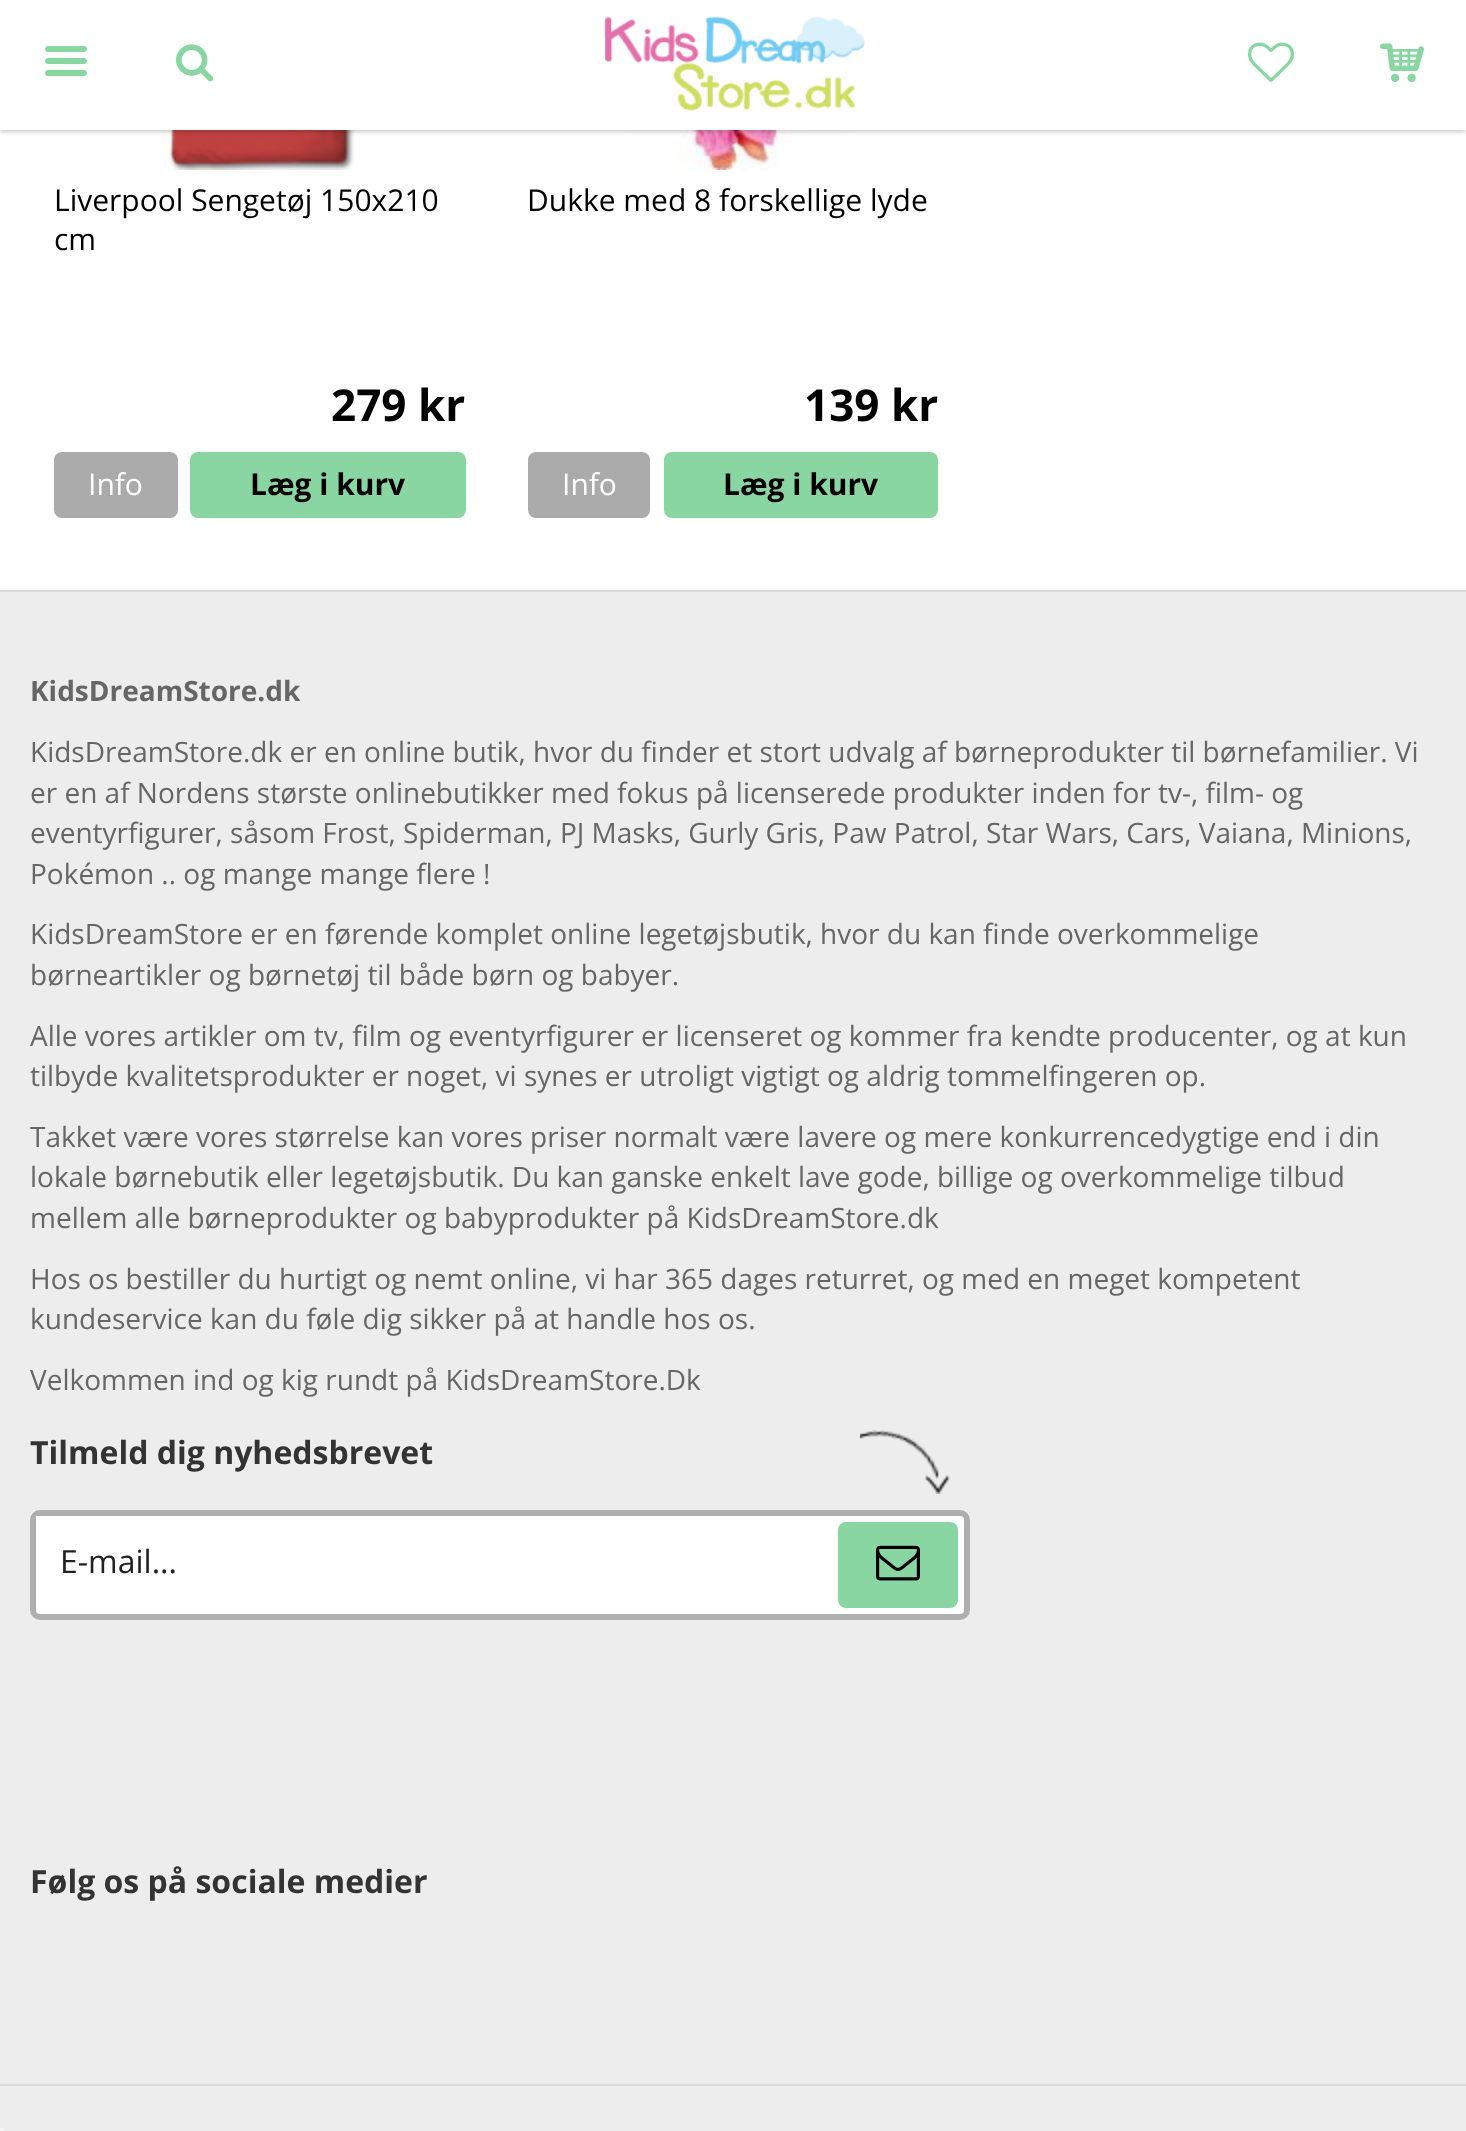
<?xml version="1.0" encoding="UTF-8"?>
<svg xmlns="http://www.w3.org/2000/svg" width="1466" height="2131">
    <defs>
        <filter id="blur1" x="-50%" y="-200%" width="200%" height="500%"><feGaussianBlur stdDeviation="2"/></filter>
    </defs>
    <rect width="100%" height="100%" fill="#FFFFFF"/>
    <image x="163" y="130" width="192" height="40" href="img_06.png"/>
    <image x="616" y="130" width="234" height="40" href="img_07.png"/>
    <rect x="0" y="2" width="1466" height="130" fill="#000000" fill-opacity="0.2" filter="url(#blur1)"/>
    <rect x="0" y="0" width="1466" height="130" fill="#FFFFFF"/>
    <image x="45" y="46" width="42" height="31" href="img_01.png"/>
    <image x="176" y="44" width="38" height="38" href="img_02.png"/>
    <image x="604" y="16" width="261" height="95" href="img_03.png"/>
    <image x="1248" y="42" width="46" height="40" href="img_04.png"/>
    <image x="1380" y="43" width="44" height="39" href="img_05.png"/>
    <text font-family="Open Sans" font-size="30" fill="#000000">
        <tspan x="54" y="211">Liverpool Sengetøj 150x210</tspan>
        <tspan x="54" y="250">cm</tspan>
    </text>
    <text x="331" y="421" font-family="Open Sans" font-size="44" font-weight="700" fill="#000000">279 kr</text>
    <rect x="54" y="452" width="124" height="66" rx="8" fill="#ACABAB"/>
    <text x="88" y="495" font-family="Open Sans" font-size="30" fill="#FFFFFF">Info</text>
    <rect x="190" y="452" width="276" height="66" rx="8" fill="#89D6A3"/>
    <text x="250" y="495" font-family="Open Sans" font-size="30" font-weight="700" fill="#000000">Læg i kurv</text>
    <text x="527" y="211" font-family="Open Sans" font-size="30" fill="#000000">Dukke med 8 forskellige lyde</text>
    <text x="804" y="421" font-family="Open Sans" font-size="44" font-weight="700" fill="#000000">139 kr</text>
    <rect x="528" y="452" width="122" height="66" rx="8" fill="#ACABAB"/>
    <text x="562" y="495" font-family="Open Sans" font-size="30" fill="#FFFFFF">Info</text>
    <rect x="664" y="452" width="274" height="66" rx="8" fill="#89D6A3"/>
    <text x="723" y="495" font-family="Open Sans" font-size="30" font-weight="700" fill="#000000">Læg i kurv</text>
    <rect x="0" y="592" width="1466" height="1492" fill="#EDEDED"/>
    <rect x="0" y="590" width="1466" height="2" fill="#DAD8D8"/>
    <rect x="0" y="2084" width="1466" height="2" fill="#DAD8D8"/>
    <text x="30" y="701" font-family="Open Sans" font-size="28" font-weight="700" fill="#666666">KidsDreamStore.dk</text>
    <text font-family="Open Sans" font-size="28" fill="#666666">
        <tspan x="30" y="762">KidsDreamStore.dk er en online butik, hvor du finder et stort udvalg af børneprodukter til børnefamilier. Vi</tspan>
        <tspan x="30" y="803">er en af Nordens største onlinebutikker med fokus på licenserede produkter inden for tv-, film- og</tspan>
        <tspan x="30" y="843">eventyrfigurer, såsom Frost, Spiderman, PJ Masks, Gurly Gris, Paw Patrol, Star Wars, Cars, Vaiana, Minions,</tspan>
        <tspan x="30" y="884">Pokémon .. og mange mange flere !</tspan>
    </text>
    <text font-family="Open Sans" font-size="28" fill="#666666">
        <tspan x="30" y="944">KidsDreamStore er en førende komplet online legetøjsbutik, hvor du kan finde overkommelige</tspan>
        <tspan x="30" y="985">børneartikler og børnetøj til både børn og babyer.</tspan>
    </text>
    <text font-family="Open Sans" font-size="28" fill="#666666">
        <tspan x="30" y="1046">Alle vores artikler om tv, film og eventyrfigurer er licenseret og kommer fra kendte producenter, og at kun</tspan>
        <tspan x="30" y="1086">tilbyde kvalitetsprodukter er noget, vi synes er utroligt vigtigt og aldrig tommelfingeren op.</tspan>
    </text>
    <text font-family="Open Sans" font-size="28" fill="#666666">
        <tspan x="30" y="1147">Takket være vores størrelse kan vores priser normalt være lavere og mere konkurrencedygtige end i din</tspan>
        <tspan x="30" y="1187">lokale børnebutik eller legetøjsbutik. Du kan ganske enkelt lave gode, billige og overkommelige tilbud</tspan>
        <tspan x="30" y="1228">mellem alle børneprodukter og babyprodukter på KidsDreamStore.dk</tspan>
    </text>
    <text font-family="Open Sans" font-size="28" fill="#666666">
        <tspan x="30" y="1289">Hos os bestiller du hurtigt og nemt online, vi har 365 dages returret, og med en meget kompetent</tspan>
        <tspan x="30" y="1329">kundeservice kan du føle dig sikker på at handle hos os.</tspan>
    </text>
    <text x="30" y="1390" font-family="Open Sans" font-size="28" fill="#666666">Velkommen ind og kig rundt på KidsDreamStore.Dk</text>
    <text x="30" y="1464" font-family="Open Sans" font-size="32" font-weight="700" fill="#333333">Tilmeld dig nyhedsbrevet</text>
    <image x="860" y="1430" width="90" height="64" href="img_08.png"/>
    <rect x="33" y="1513" width="934" height="104" rx="7" fill="#FFFFFF" stroke="#B0AFAF" stroke-width="6"/>
    <rect x="36" y="1516" width="4" height="4" fill="#FFFFFF"/>
    <text x="60" y="1573" font-family="Open Sans" font-size="32" fill="#222222">E-mail...</text>
    <rect x="838" y="1522" width="120" height="86" rx="8" fill="#89D6A3"/>
    <image x="876" y="1545" width="44" height="36" href="img_09.png"/>
    <text x="30" y="1893" font-family="Open Sans" font-size="32" font-weight="700" fill="#333333">Følg os på sociale medier</text>
    <rect x="0" y="2086" width="1466" height="45" fill="#EDEDED"/>
    <rect x="0" y="2128" width="4" height="3" fill="#F5F5F5"/>
</svg>
